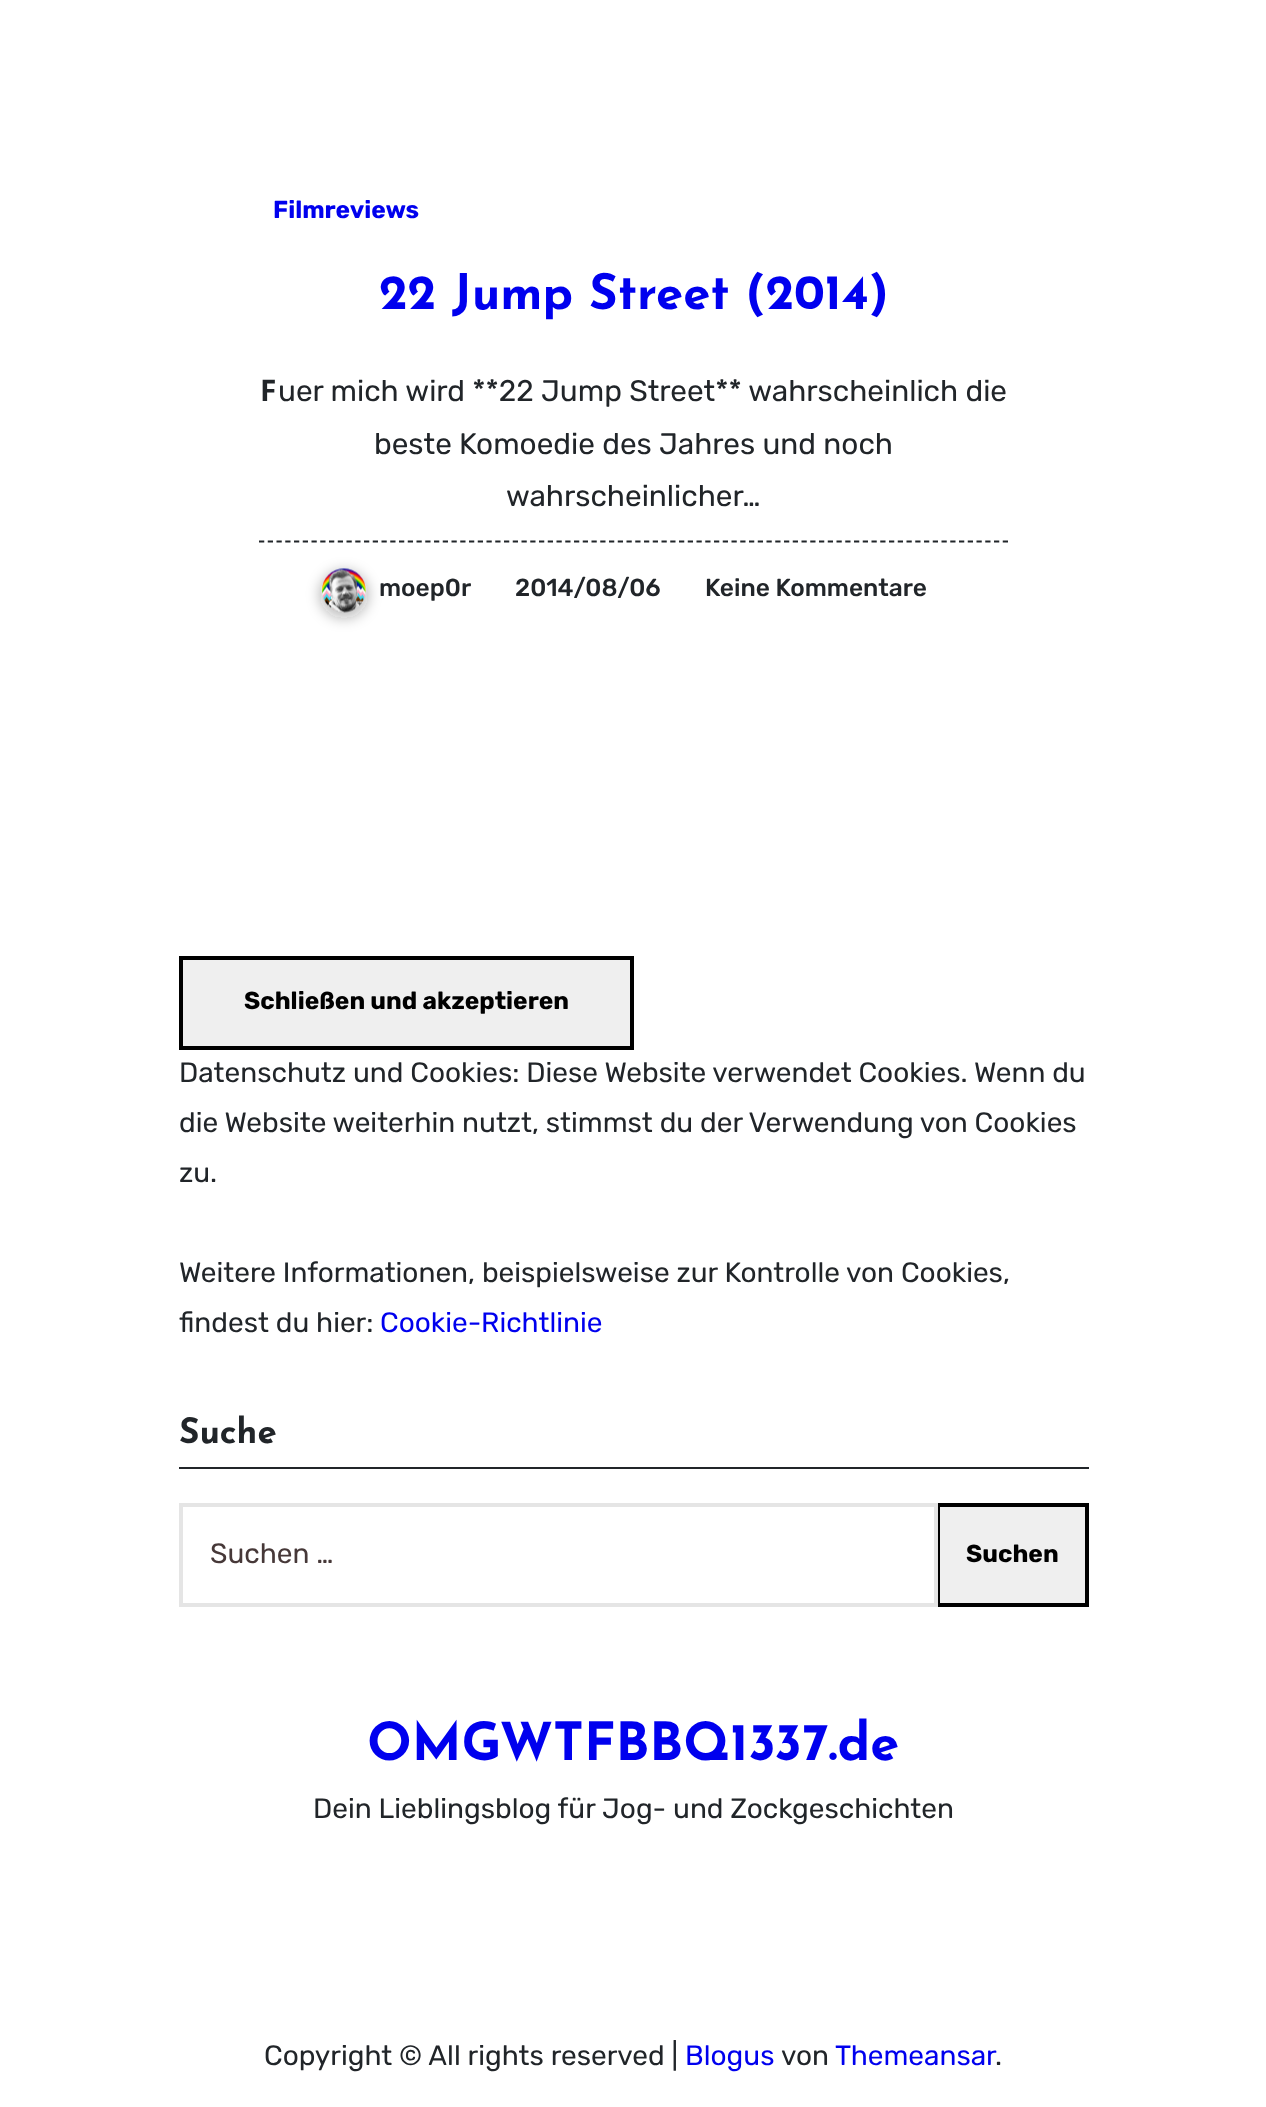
<?xml version="1.0" encoding="UTF-8"?>
<svg xmlns="http://www.w3.org/2000/svg" width="1266" height="2107">
    <defs>
        <filter id="blur1" x="-50%" y="-200%" width="200%" height="500%"><feGaussianBlur stdDeviation="7"/></filter>
    </defs>
    <rect width="100%" height="100%" fill="#FFFFFF"/>
    <text x="273" y="218" font-family="Rubik" font-size="24.5" font-weight="700" fill="#0000EE">Filmreviews</text>
    <text x="379" y="309" font-family="Josefin Sans" font-size="49" font-weight="700" fill="#0000EE">22 Jump Street (2014)</text>
    <text x="260" y="401" font-family="Noto Sans" font-size="29.75" font-weight="700" fill="#212529">F</text>
    <text x="278" y="401" font-family="Rubik" font-size="29.75" font-weight="300" fill="#212529">uer mich wird **22 Jump Street** wahrscheinlich die</text>
    <text x="374" y="454" font-family="Rubik" font-size="29.75" font-weight="300" fill="#212529">beste Komoedie des Jahres und noch</text>
    <text x="506" y="506" font-family="Rubik" font-size="29.75" font-weight="300" fill="#212529">wahrscheinlicher…</text>
    <path d="M 259 541.5 H 1008" fill="none" stroke="#212529" stroke-width="1.8" stroke-dasharray="5.25 3.5"/>
    <rect x="320" y="571" width="48" height="47" rx="23.5" fill="#212121" fill-opacity="0.3" filter="url(#blur1)"/>
    <image x="322" y="568" width="44" height="45" href="img_01.png"/>
    <text x="379" y="596" font-family="Rubik" font-size="24.5" font-weight="500" fill="#212529">moep0r</text>
    <text x="515" y="596" font-family="Rubik" font-size="24.5" font-weight="500" fill="#212529">2014/08/06</text>
    <text x="705" y="596" font-family="Rubik" font-size="24.5" font-weight="500" fill="#212529">Keine Kommentare</text>
    <rect x="181" y="958" width="451" height="90" fill="#EFEFEF" stroke="#000000" stroke-width="4"/>
    <text x="244" y="1009" font-family="Rubik" font-size="24.5" font-weight="700" fill="#000000">Schließen und akzeptieren</text>
    <text font-family="Rubik" font-size="28" font-weight="300" fill="#212529">
        <tspan x="179" y="1082">Datenschutz und Cookies: Diese Website verwendet Cookies. Wenn du</tspan>
        <tspan x="179" y="1132">die Website weiterhin nutzt, stimmst du der Verwendung von Cookies</tspan>
        <tspan x="179" y="1182">zu.</tspan>
    </text>
    <text font-family="Rubik" font-size="28" font-weight="300" fill="#212529">
        <tspan x="179" y="1282">Weitere Informationen, beispielsweise zur Kontrolle von Cookies,</tspan>
        <tspan x="179" y="1332">findest du hier:</tspan>
    </text>
    <text x="380" y="1332" font-family="Rubik" font-size="28" font-weight="300" fill="#0000EE">Cookie-Richtlinie</text>
    <rect x="179" y="1467" width="910" height="2" fill="#212529"/>
    <text x="179" y="1443" font-family="Josefin Sans" font-size="35" font-weight="700" fill="#212529">Suche</text>
    <rect x="938" y="1505" width="149" height="100" fill="#EFEFEF" stroke="#000000" stroke-width="4"/>
    <rect x="181" y="1505" width="755" height="100" fill="none" stroke="#E5E5E5" stroke-width="4"/>
    <text x="210" y="1563" font-family="Rubik" font-size="28" font-weight="300" fill="#463838">Suchen …</text>
    <text x="966" y="1562" font-family="Rubik" font-size="24.5" font-weight="700" fill="#000000">Suchen</text>
    <text x="367" y="1760" font-family="Josefin Sans" font-size="52.5" font-weight="700" fill="#0000EE">OMGWTFBBQ1337.de</text>
    <text x="313" y="1818" font-family="Rubik" font-size="28" font-weight="300" fill="#212529">Dein Lieblingsblog für Jog- und Zockgeschichten</text>
    <text x="264" y="2065" font-family="Rubik" font-size="28" font-weight="300" fill="#212529">Copyright © All rights reserved |</text>
    <text x="685" y="2065" font-family="Rubik" font-size="28" font-weight="300" fill="#0000EE">Blogus</text>
    <text x="781" y="2065" font-family="Rubik" font-size="28" font-weight="300" fill="#212529">von</text>
    <text x="835" y="2065" font-family="Rubik" font-size="28" font-weight="300" fill="#0000EE">Themeansar</text>
    <text x="995" y="2065" font-family="Rubik" font-size="28" font-weight="300" fill="#212529">.</text>
</svg>
